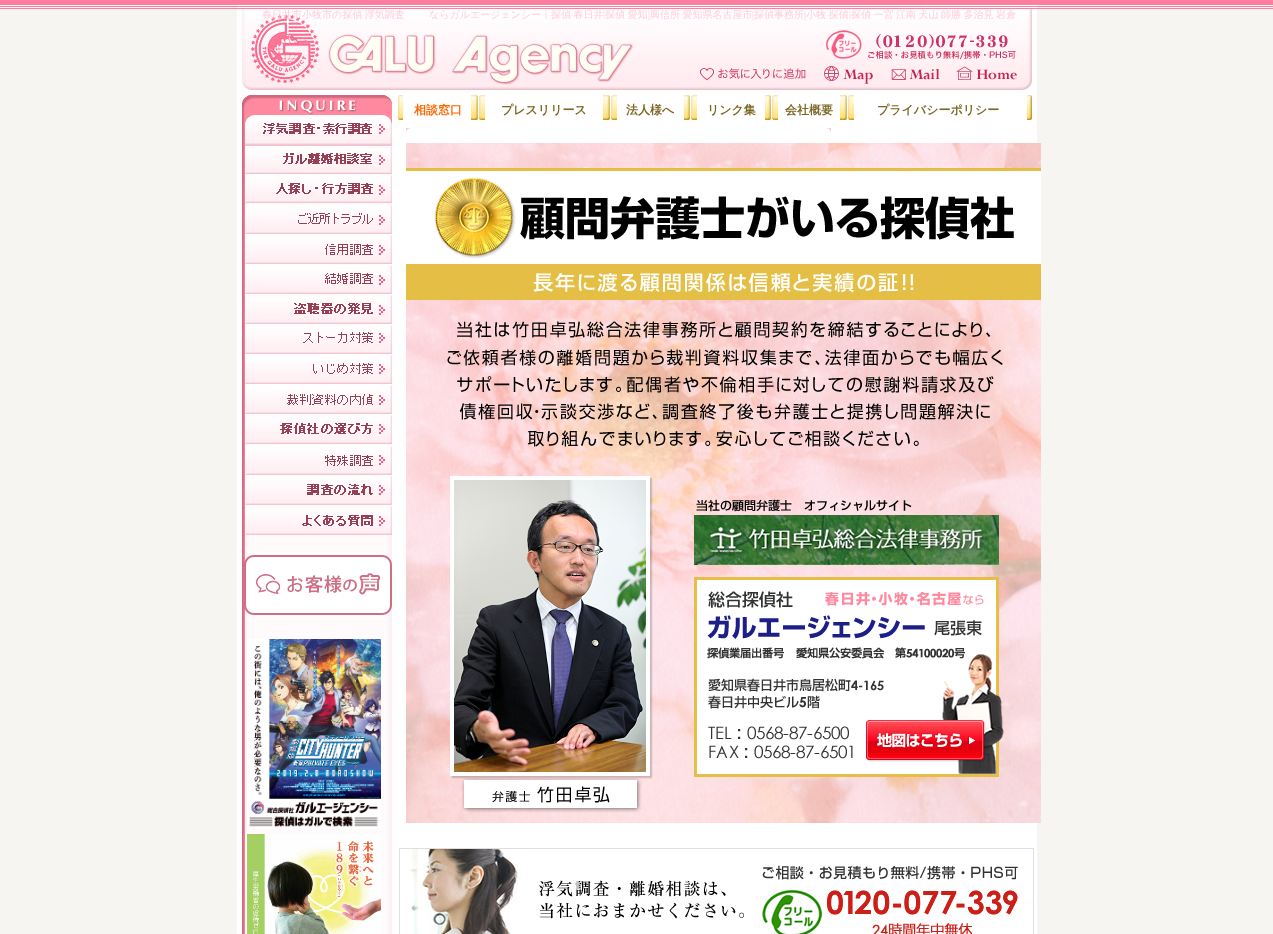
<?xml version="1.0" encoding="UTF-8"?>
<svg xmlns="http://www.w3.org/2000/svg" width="1273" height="934">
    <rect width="100%" height="100%" fill="#F6F5F1"/>
    <image x="0" y="0" width="1273" height="9" href="img_01.png"/>
    <image x="237" y="95" width="800" height="839" href="img_02.png"/>
    <image x="237" y="0" width="800" height="95" href="img_03.png"/>
    <text x="262" y="18" word-spacing="-0.5" font-family="WenQuanYi Zen Hei" font-size="10" font-weight="500" fill="#FFCED8">春日井市小牧市の探偵 浮気調査</text>
    <text x="429" y="18" word-spacing="-0.5" font-family="WenQuanYi Zen Hei" font-size="10" font-weight="500" fill="#FFCED8">ならガルエージェンシー｜探偵 春日井</text>
    <text x="603" y="18" font-family="Liberation Serif" font-size="10" fill="#FFCED8">|</text>
    <text x="605" y="18" word-spacing="-0.5" font-family="WenQuanYi Zen Hei" font-size="10" font-weight="500" fill="#FFCED8">探偵 愛知</text>
    <text x="648" y="18" font-family="Liberation Serif" font-size="10" fill="#FFCED8">|</text>
    <text x="650" y="18" word-spacing="-0.5" font-family="WenQuanYi Zen Hei" font-size="10" font-weight="500" fill="#FFCED8">興信所 愛知県名古屋市</text>
    <text x="752" y="18" font-family="Liberation Serif" font-size="10" fill="#FFCED8">|</text>
    <text x="754" y="18" font-family="WenQuanYi Zen Hei" font-size="10" font-weight="500" fill="#FFCED8">探偵事務所</text>
    <text x="804" y="18" font-family="Liberation Serif" font-size="10" fill="#FFCED8">|</text>
    <text x="806" y="18" word-spacing="-0.5" font-family="WenQuanYi Zen Hei" font-size="10" font-weight="500" fill="#FFCED8">小牧 探偵</text>
    <text x="849" y="18" font-family="Liberation Serif" font-size="10" fill="#FFCED8">|</text>
    <text x="851" y="18" word-spacing="-0.5" font-family="WenQuanYi Zen Hei" font-size="10" font-weight="500" fill="#FFCED8">探偵 一宮 江南 犬山 師勝 多治見 岩倉</text>
    <image x="250" y="19" width="385" height="64" href="img_04.png"/>
    <image x="818" y="19" width="196" height="36" href="img_05.png"/>
    <image x="700" y="67" width="106" height="14" href="img_06.png"/>
    <image x="824" y="65" width="49" height="19" href="img_07.png"/>
    <image x="891" y="68" width="49" height="12" href="img_08.png"/>
    <image x="956" y="65" width="61" height="15" href="img_09.png"/>
    <image x="242" y="95" width="150" height="20" href="img_10.png"/>
    <image x="245" y="115" width="147" height="30" href="img_11.png"/>
    <image x="245" y="145" width="147" height="29" href="img_12.png"/>
    <image x="245" y="175" width="147" height="28" href="img_13.png"/>
    <image x="245" y="205" width="147" height="30" href="img_14.png"/>
    <image x="245" y="235" width="147" height="30" href="img_15.png"/>
    <image x="245" y="265" width="147" height="30" href="img_16.png"/>
    <image x="245" y="295" width="147" height="30" href="img_17.png"/>
    <image x="245" y="325" width="147" height="30" href="img_18.png"/>
    <image x="245" y="355" width="147" height="30" href="img_19.png"/>
    <image x="245" y="385" width="147" height="30" href="img_20.png"/>
    <image x="245" y="415" width="147" height="29" href="img_21.png"/>
    <image x="245" y="445" width="147" height="30" href="img_22.png"/>
    <image x="245" y="475" width="147" height="30" href="img_23.png"/>
    <image x="245" y="505" width="147" height="30" href="img_24.png"/>
    <image x="244" y="555" width="148" height="60" href="img_25.png"/>
    <image x="247" y="639" width="134" height="190" href="img_26.png"/>
    <image x="247" y="834" width="134" height="100" href="img_27.png"/>
    <image x="398" y="95" width="5" height="25" href="img_28.png"/>
    <text x="414" y="114" font-family="WenQuanYi Zen Hei" font-size="12" font-weight="700" fill="#FF6600">相談窓口</text>
    <image x="471" y="95" width="14" height="25" href="img_29.png"/>
    <image x="475" y="95" width="7" height="25" href="img_30.png"/>
    <text x="501" y="114" font-family="WenQuanYi Zen Hei" font-size="12" font-weight="700" fill="#7C6622">プレスリリース</text>
    <image x="603" y="95" width="14" height="25" href="img_29.png"/>
    <image x="607" y="95" width="7" height="25" href="img_30.png"/>
    <text x="626" y="114" font-family="WenQuanYi Zen Hei" font-size="12" font-weight="700" fill="#7C6622">法人様へ</text>
    <image x="684" y="95" width="13" height="25" href="img_31.png"/>
    <image x="687" y="95" width="7" height="25" href="img_30.png"/>
    <text x="707" y="114" font-family="WenQuanYi Zen Hei" font-size="12" font-weight="700" fill="#7C6622">リンク集</text>
    <image x="765" y="95" width="13" height="25" href="img_31.png"/>
    <image x="768" y="95" width="7" height="25" href="img_30.png"/>
    <text x="785" y="114" font-family="WenQuanYi Zen Hei" font-size="12" font-weight="700" fill="#7C6622">会社概要</text>
    <image x="840" y="95" width="14" height="25" href="img_29.png"/>
    <image x="844" y="95" width="7" height="25" href="img_30.png"/>
    <text x="877" y="114" font-family="WenQuanYi Zen Hei" font-size="12" font-weight="700" fill="#7C6622">プライバシーポリシー</text>
    <image x="1027" y="95" width="5" height="25" href="img_32.png"/>
    <image x="406" y="128" width="425" height="4" href="img_33.png"/>
    <image x="406" y="143" width="635" height="680" href="img_34.png"/>
    <image x="399" y="848" width="635" height="86" href="img_35.png"/>
</svg>
